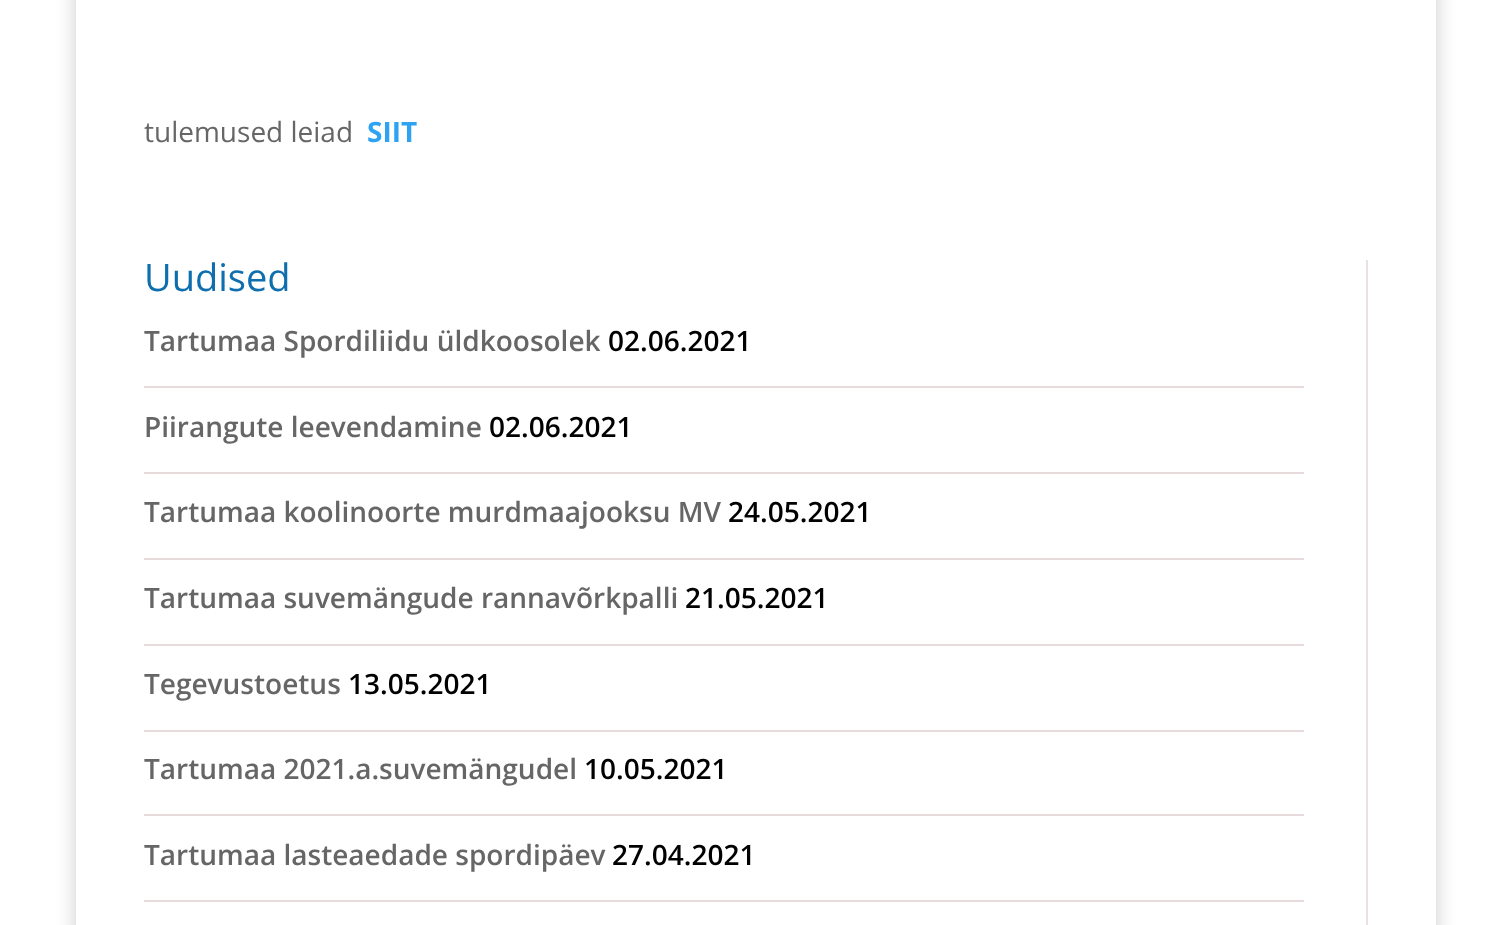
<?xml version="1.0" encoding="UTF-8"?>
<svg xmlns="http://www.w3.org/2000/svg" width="1512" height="925">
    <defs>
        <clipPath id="clip1"><path d="M 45 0 H 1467 V 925 H 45 Z M 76 -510 H 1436 V 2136 H 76 Z" clip-rule="evenodd"/></clipPath>
        <filter id="blur1" x="-50%" y="-200%" width="200%" height="500%"><feGaussianBlur stdDeviation="10"/></filter>
    </defs>
    <rect width="100%" height="100%" fill="#FFFFFF"/>
    <g clip-path="url(#clip1)">
        <rect x="76" y="-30" width="1360" height="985" fill="#000000" fill-opacity="0.2" filter="url(#blur1)"/>
    </g>
    <text x="144" y="142" font-family="Open Sans" font-size="28" fill="#666666">tulemused leiad</text>
    <text x="367" y="142" font-family="Open Sans" font-size="28" font-weight="700" fill="#2EA3F2">SIIT</text>
    <rect x="1366" y="260" width="2" height="665" fill="#EAE1E1"/>
    <text x="144" y="291" font-family="Open Sans" font-size="38" fill="#0E6EAE">Uudised</text>
    <rect x="144" y="386" width="1160" height="2" fill="#E8DBDB"/>
    <text x="144" y="351" font-family="Open Sans" font-size="28" font-weight="600" fill="#666666">Tartumaa Spordiliidu üldkoosolek</text>
    <text x="608" y="351" font-family="Open Sans" font-size="28" font-weight="600" fill="#000000">02.06.2021</text>
    <rect x="144" y="472" width="1160" height="2" fill="#E8DBDB"/>
    <text x="144" y="437" font-family="Open Sans" font-size="28" font-weight="600" fill="#666666">Piirangute leevendamine</text>
    <text x="489" y="437" font-family="Open Sans" font-size="28" font-weight="600" fill="#000000">02.06.2021</text>
    <rect x="144" y="558" width="1160" height="2" fill="#E8DBDB"/>
    <text x="144" y="522" font-family="Open Sans" font-size="28" font-weight="600" fill="#666666">Tartumaa koolinoorte murdmaajooksu MV</text>
    <text x="728" y="522" font-family="Open Sans" font-size="28" font-weight="600" fill="#000000">24.05.2021</text>
    <rect x="144" y="644" width="1160" height="2" fill="#E8DBDB"/>
    <text x="144" y="608" font-family="Open Sans" font-size="28" font-weight="600" fill="#666666">Tartumaa suvemängude rannavõrkpalli</text>
    <text x="685" y="608" font-family="Open Sans" font-size="28" font-weight="600" fill="#000000">21.05.2021</text>
    <rect x="144" y="730" width="1160" height="2" fill="#E8DBDB"/>
    <text x="144" y="694" font-family="Open Sans" font-size="28" font-weight="600" fill="#666666">Tegevustoetus</text>
    <text x="348" y="694" font-family="Open Sans" font-size="28" font-weight="600" fill="#000000">13.05.2021</text>
    <rect x="144" y="814" width="1160" height="2" fill="#E8DBDB"/>
    <text x="144" y="779" font-family="Open Sans" font-size="28" font-weight="600" fill="#666666">Tartumaa 2021.a.suvemängudel</text>
    <text x="584" y="779" font-family="Open Sans" font-size="28" font-weight="600" fill="#000000">10.05.2021</text>
    <rect x="144" y="900" width="1160" height="2" fill="#E8DBDB"/>
    <text x="144" y="865" font-family="Open Sans" font-size="28" font-weight="600" fill="#666666">Tartumaa lasteaedade spordipäev</text>
    <text x="612" y="865" font-family="Open Sans" font-size="28" font-weight="600" fill="#000000">27.04.2021</text>
</svg>
